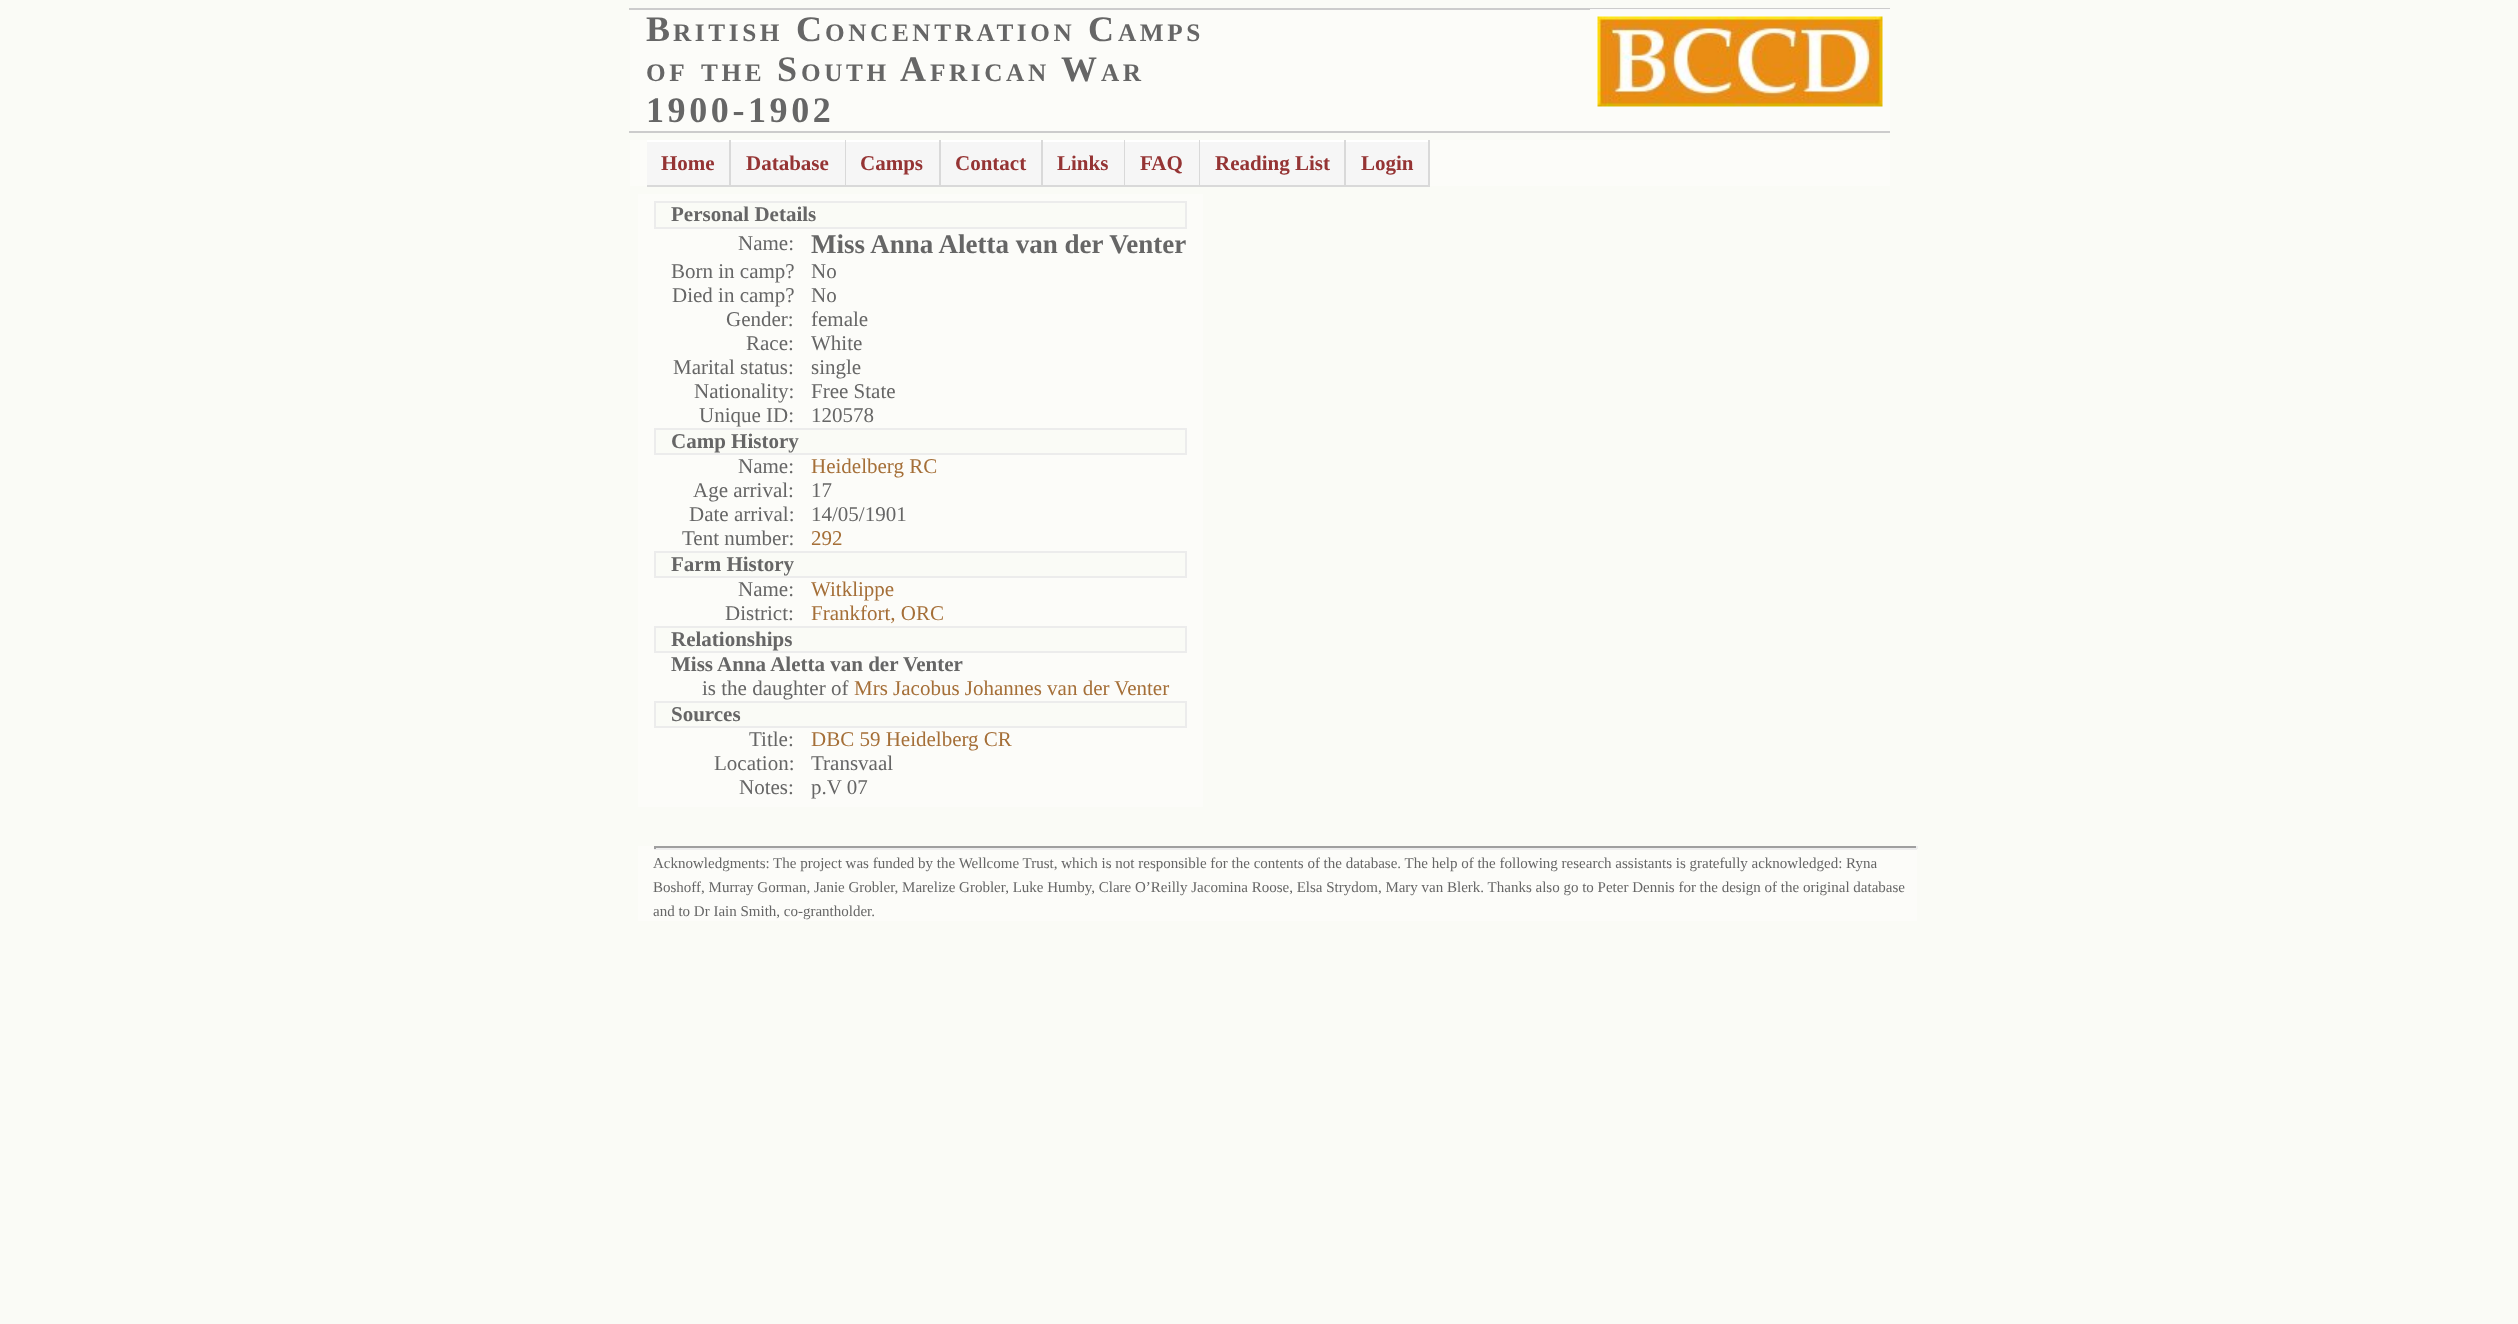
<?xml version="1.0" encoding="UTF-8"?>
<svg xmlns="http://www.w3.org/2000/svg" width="2518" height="1324">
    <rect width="100%" height="100%" fill="#FAFBF6"/>
    <rect x="630" y="10" width="1260" height="121" fill="#FCFCF9"/>
    <rect x="629" y="8" width="1261" height="2" fill="#CCCCCC"/>
    <rect x="629" y="131" width="1261" height="2" fill="#CCCCCC"/>
    <text x="646" y="41" font-family="Liberation Serif" font-size="36" font-weight="700" letter-spacing="3.6" fill="#666666">B</text>
    <text x="673" y="41" font-family="Liberation Serif" font-size="25.25" font-weight="700" letter-spacing="3.6" fill="#666666">RITISH</text>
    <text x="796" y="41" font-family="Liberation Serif" font-size="36" font-weight="700" letter-spacing="3.6" fill="#666666">C</text>
    <text x="825" y="41" font-family="Liberation Serif" font-size="25.25" font-weight="700" letter-spacing="3.6" fill="#666666">ONCENTRATION</text>
    <text x="1088" y="41" font-family="Liberation Serif" font-size="36" font-weight="700" letter-spacing="3.6" fill="#666666">C</text>
    <text x="1118" y="41" font-family="Liberation Serif" font-size="25.25" font-weight="700" letter-spacing="3.6" fill="#666666">AMPS</text>
    <rect x="1590" y="9" width="300" height="1" fill="#FAFAFA"/>
    <image x="1597" y="16" width="286" height="91" href="img_01.png"/>
    <text x="646" y="81" font-family="Liberation Serif" font-size="25.25" font-weight="700" letter-spacing="3.6" fill="#666666">OF</text>
    <text x="701" y="81" font-family="Liberation Serif" font-size="25.25" font-weight="700" letter-spacing="3.6" fill="#666666">THE</text>
    <text x="777" y="81" font-family="Liberation Serif" font-size="36" font-weight="700" letter-spacing="3.6" fill="#666666">S</text>
    <text x="801" y="81" font-family="Liberation Serif" font-size="25.25" font-weight="700" letter-spacing="3.6" fill="#666666">OUTH</text>
    <text x="900" y="81" font-family="Liberation Serif" font-size="36" font-weight="700" letter-spacing="3.6" fill="#666666">A</text>
    <text x="930" y="81" font-family="Liberation Serif" font-size="25.25" font-weight="700" letter-spacing="3.6" fill="#666666">FRICAN</text>
    <text x="1061" y="81" font-family="Liberation Serif" font-size="36" font-weight="700" letter-spacing="3.6" fill="#666666">W</text>
    <text x="1101" y="81" font-family="Liberation Serif" font-size="25.25" font-weight="700" letter-spacing="3.6" fill="#666666">AR</text>
    <text x="646" y="122" font-family="Liberation Serif" font-size="36" font-weight="700" letter-spacing="3.6" fill="#666666">1900-1902</text>
    <rect x="630" y="140" width="1260" height="46" fill="#FCFCF9"/>
    <rect x="647" y="142" width="82" height="43" fill="#F6F6F6"/>
    <rect x="647" y="140" width="783" height="2" fill="#FFFFFF"/>
    <rect x="729" y="140" width="2" height="46" fill="#D9D9D9"/>
    <rect x="647" y="185" width="84" height="2" fill="#D9D9D9"/>
    <text x="661" y="170" font-family="Liberation Serif" font-size="21" font-weight="700" fill="#953434">Home</text>
    <rect x="731" y="142" width="114" height="43" fill="#F6F6F6"/>
    <rect x="845" y="140" width="1" height="46" fill="#D9D9D9"/>
    <rect x="731" y="185" width="115" height="2" fill="#D9D9D9"/>
    <text x="746" y="170" font-family="Liberation Serif" font-size="21" font-weight="700" fill="#953434">Database</text>
    <rect x="846" y="142" width="93" height="43" fill="#F6F6F6"/>
    <rect x="939" y="140" width="2" height="46" fill="#D9D9D9"/>
    <rect x="846" y="185" width="95" height="2" fill="#D9D9D9"/>
    <text x="860" y="170" font-family="Liberation Serif" font-size="21" font-weight="700" fill="#953434">Camps</text>
    <rect x="941" y="142" width="100" height="43" fill="#F6F6F6"/>
    <rect x="1041" y="140" width="2" height="46" fill="#D9D9D9"/>
    <rect x="941" y="185" width="102" height="2" fill="#D9D9D9"/>
    <text x="955" y="170" font-family="Liberation Serif" font-size="21" font-weight="700" fill="#953434">Contact</text>
    <rect x="1043" y="142" width="81" height="43" fill="#F6F6F6"/>
    <rect x="1124" y="140" width="1" height="46" fill="#D9D9D9"/>
    <rect x="1043" y="185" width="82" height="2" fill="#D9D9D9"/>
    <text x="1057" y="170" font-family="Liberation Serif" font-size="21" font-weight="700" fill="#953434">Links</text>
    <rect x="1125" y="142" width="74" height="43" fill="#F6F6F6"/>
    <rect x="1199" y="140" width="1" height="46" fill="#D9D9D9"/>
    <rect x="1125" y="185" width="75" height="2" fill="#D9D9D9"/>
    <text x="1140" y="170" font-family="Liberation Serif" font-size="21" font-weight="700" fill="#953434">FAQ</text>
    <rect x="1200" y="142" width="144" height="43" fill="#F6F6F6"/>
    <rect x="1344" y="140" width="2" height="46" fill="#D9D9D9"/>
    <rect x="1200" y="185" width="146" height="2" fill="#D9D9D9"/>
    <text x="1215" y="170" font-family="Liberation Serif" font-size="21" font-weight="700" fill="#953434">Reading List</text>
    <rect x="1346" y="142" width="82" height="43" fill="#F6F6F6"/>
    <rect x="1428" y="140" width="2" height="46" fill="#D9D9D9"/>
    <rect x="1346" y="185" width="84" height="2" fill="#D9D9D9"/>
    <text x="1361" y="170" font-family="Liberation Serif" font-size="21" font-weight="700" fill="#953434">Login</text>
    <rect x="638" y="194" width="565" height="613" fill="#FCFCF9"/>
    <rect x="656" y="203" width="529" height="24" fill="#FAFBF6"/>
    <rect x="654" y="201" width="533" height="2" fill="#ECECEC"/>
    <rect x="1185" y="201" width="2" height="27" fill="#ECECEC"/>
    <rect x="654" y="227" width="533" height="2" fill="#ECECEC"/>
    <rect x="654" y="201" width="2" height="27" fill="#ECECEC"/>
    <text x="671" y="221" font-family="Liberation Serif" font-size="21" font-weight="700" fill="#666666">Personal Details</text>
    <text x="738" y="250" font-family="Liberation Serif" font-size="21" fill="#666666">Name:</text>
    <text x="811" y="253" font-family="Liberation Serif" font-size="27" font-weight="700" fill="#666666">Miss Anna Aletta van der Venter</text>
    <text x="671" y="278" font-family="Liberation Serif" font-size="21" fill="#666666">Born in camp?</text>
    <text x="811" y="278" font-family="Liberation Serif" font-size="21" fill="#666666">No</text>
    <text x="672" y="302" font-family="Liberation Serif" font-size="21" fill="#666666">Died in camp?</text>
    <text x="811" y="302" font-family="Liberation Serif" font-size="21" fill="#666666">No</text>
    <text x="726" y="326" font-family="Liberation Serif" font-size="21" fill="#666666">Gender:</text>
    <text x="811" y="326" font-family="Liberation Serif" font-size="21" fill="#666666">female</text>
    <text x="746" y="350" font-family="Liberation Serif" font-size="21" fill="#666666">Race:</text>
    <text x="811" y="350" font-family="Liberation Serif" font-size="21" fill="#666666">White</text>
    <text x="673" y="374" font-family="Liberation Serif" font-size="21" fill="#666666">Marital status:</text>
    <text x="811" y="374" font-family="Liberation Serif" font-size="21" fill="#666666">single</text>
    <text x="694" y="398" font-family="Liberation Serif" font-size="21" fill="#666666">Nationality:</text>
    <text x="811" y="398" font-family="Liberation Serif" font-size="21" fill="#666666">Free State</text>
    <text x="699" y="422" font-family="Liberation Serif" font-size="21" fill="#666666">Unique ID:</text>
    <text x="811" y="422" font-family="Liberation Serif" font-size="21" fill="#666666">120578</text>
    <rect x="656" y="430" width="529" height="23" fill="#FAFBF6"/>
    <rect x="654" y="428" width="533" height="2" fill="#ECECEC"/>
    <rect x="1185" y="428" width="2" height="27" fill="#ECECEC"/>
    <rect x="654" y="453" width="533" height="2" fill="#ECECEC"/>
    <rect x="654" y="428" width="2" height="27" fill="#ECECEC"/>
    <text x="671" y="448" font-family="Liberation Serif" font-size="21" font-weight="700" fill="#666666">Camp History</text>
    <text x="738" y="473" font-family="Liberation Serif" font-size="21" fill="#666666">Name:</text>
    <text x="811" y="473" font-family="Liberation Serif" font-size="21" fill="#A56F38">Heidelberg RC</text>
    <text x="693" y="497" font-family="Liberation Serif" font-size="21" fill="#666666">Age arrival:</text>
    <text x="811" y="497" font-family="Liberation Serif" font-size="21" fill="#666666">17</text>
    <text x="689" y="521" font-family="Liberation Serif" font-size="21" fill="#666666">Date arrival:</text>
    <text x="811" y="521" font-family="Liberation Serif" font-size="21" fill="#666666">14/05/1901</text>
    <text x="682" y="545" font-family="Liberation Serif" font-size="21" fill="#666666">Tent number:</text>
    <text x="811" y="545" font-family="Liberation Serif" font-size="21" fill="#A56F38">292</text>
    <rect x="656" y="553" width="529" height="23" fill="#FAFBF6"/>
    <rect x="654" y="551" width="533" height="2" fill="#ECECEC"/>
    <rect x="1185" y="551" width="2" height="27" fill="#ECECEC"/>
    <rect x="654" y="576" width="533" height="2" fill="#ECECEC"/>
    <rect x="654" y="551" width="2" height="27" fill="#ECECEC"/>
    <text x="671" y="571" font-family="Liberation Serif" font-size="21" font-weight="700" fill="#666666">Farm History</text>
    <text x="738" y="596" font-family="Liberation Serif" font-size="21" fill="#666666">Name:</text>
    <text x="811" y="596" font-family="Liberation Serif" font-size="21" fill="#A56F38">Witklippe</text>
    <text x="725" y="620" font-family="Liberation Serif" font-size="21" fill="#666666">District:</text>
    <text x="811" y="620" font-family="Liberation Serif" font-size="21" fill="#A56F38">Frankfort, ORC</text>
    <rect x="656" y="628" width="529" height="23" fill="#FAFBF6"/>
    <rect x="654" y="626" width="533" height="2" fill="#ECECEC"/>
    <rect x="1185" y="626" width="2" height="27" fill="#ECECEC"/>
    <rect x="654" y="651" width="533" height="2" fill="#ECECEC"/>
    <rect x="654" y="626" width="2" height="27" fill="#ECECEC"/>
    <text font-family="Liberation Serif" font-size="21" font-weight="700" fill="#666666">
        <tspan x="671" y="646">Relationships</tspan>
        <tspan x="671" y="671">Miss Anna Aletta van der Venter</tspan>
    </text>
    <text x="702" y="695" font-family="Liberation Serif" font-size="21" fill="#666666">is the daughter of</text>
    <text x="854" y="695" font-family="Liberation Serif" font-size="21" fill="#A56F38">Mrs Jacobus Johannes van der Venter</text>
    <rect x="656" y="703" width="529" height="23" fill="#FAFBF6"/>
    <rect x="654" y="701" width="533" height="2" fill="#ECECEC"/>
    <rect x="1185" y="701" width="2" height="27" fill="#ECECEC"/>
    <rect x="654" y="726" width="533" height="2" fill="#ECECEC"/>
    <rect x="654" y="701" width="2" height="27" fill="#ECECEC"/>
    <text x="671" y="721" font-family="Liberation Serif" font-size="21" font-weight="700" fill="#666666">Sources</text>
    <text x="749" y="746" font-family="Liberation Serif" font-size="21" fill="#666666">Title:</text>
    <text x="811" y="746" font-family="Liberation Serif" font-size="21" fill="#A56F38">DBC 59 Heidelberg CR</text>
    <text x="714" y="770" font-family="Liberation Serif" font-size="21" fill="#666666">Location:</text>
    <text x="811" y="770" font-family="Liberation Serif" font-size="21" fill="#666666">Transvaal</text>
    <text x="739" y="794" font-family="Liberation Serif" font-size="21" fill="#666666">Notes:</text>
    <text x="811" y="794" font-family="Liberation Serif" font-size="21" fill="#666666">p.V 07</text>
    <rect x="638" y="846" width="1279" height="75" fill="#FCFCF9"/>
    <rect x="654" y="846" width="1263" height="2" fill="#9F9F9F"/>
    <rect x="1916" y="846" width="2" height="3" fill="#EEEEEE"/>
    <rect x="654" y="848" width="1263" height="2" fill="#EEEEEE"/>
    <rect x="654" y="846" width="2" height="3" fill="#9F9F9F"/>
    <text font-family="Liberation Serif" font-size="15" fill="#666666">
        <tspan x="653" y="868">Acknowledgments: The project was funded by the Wellcome Trust, which is not responsible for the contents of the database. The help of the following research assistants is gratefully acknowledged: Ryna</tspan>
        <tspan x="653" y="892">Boshoff, Murray Gorman, Janie Grobler, Marelize Grobler, Luke Humby, Clare O’Reilly Jacomina Roose, Elsa Strydom, Mary van Blerk. Thanks also go to Peter Dennis for the design of the original database</tspan>
        <tspan x="653" y="916">and to Dr Iain Smith, co-grantholder.</tspan>
    </text>
</svg>
